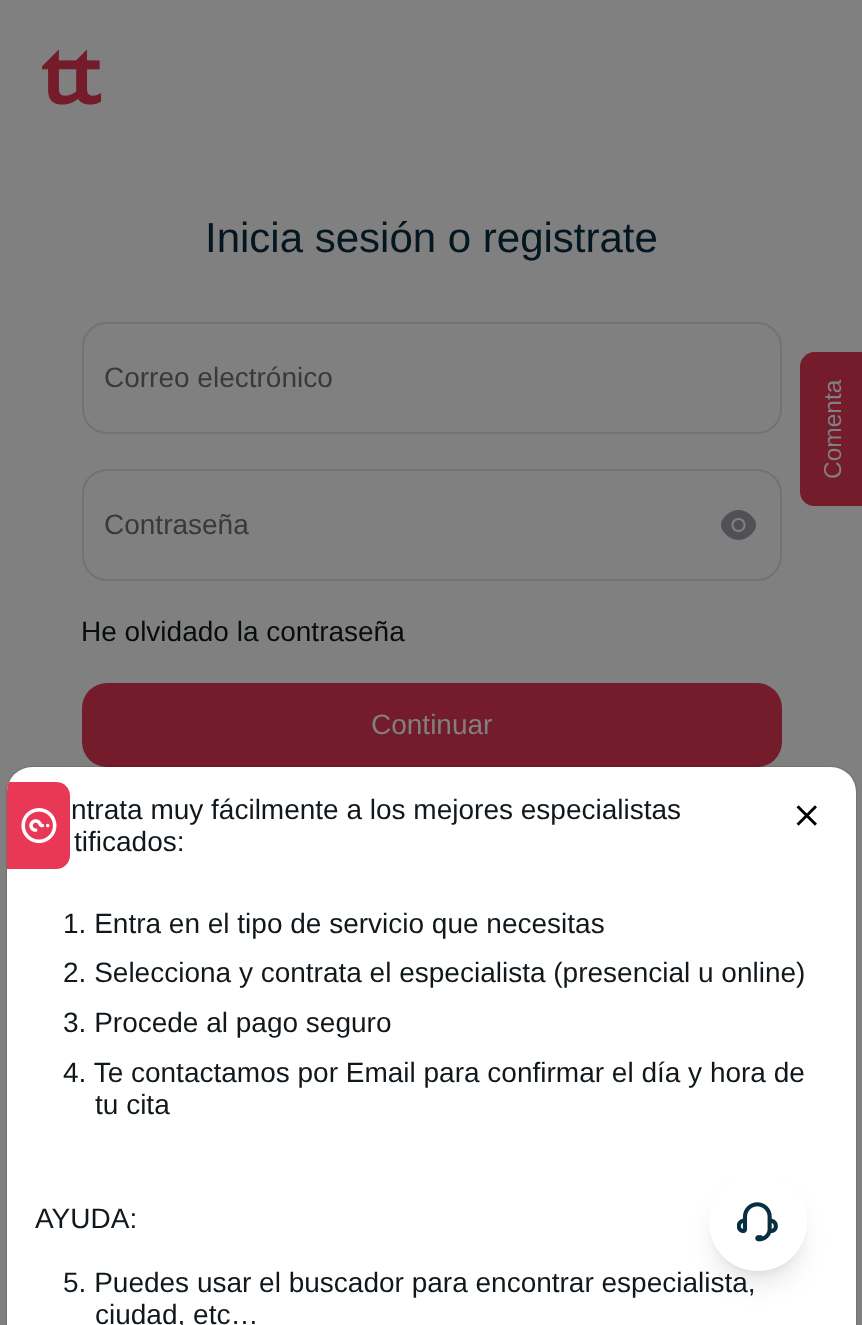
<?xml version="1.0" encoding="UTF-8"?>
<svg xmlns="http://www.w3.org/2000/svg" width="862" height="1325">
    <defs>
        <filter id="blur1" x="-50%" y="-200%" width="200%" height="500%"><feGaussianBlur stdDeviation="1"/></filter>
        <filter id="blur2" x="-50%" y="-200%" width="200%" height="500%"><feGaussianBlur stdDeviation="5"/></filter>
        <filter id="blur3" x="-50%" y="-200%" width="200%" height="500%"><feGaussianBlur stdDeviation="13"/></filter>
    </defs>
    <rect width="100%" height="100%" fill="#808080"/>
    <image x="42" y="49" width="60" height="56" href="img_01.png"/>
    <text x="205" y="252" font-family="Liberation Sans" font-size="42" fill="#041721">Inicia sesión o registrate</text>
    <rect x="83" y="323" width="698" height="110" rx="24" fill="none" stroke="#727274" stroke-width="2"/>
    <text x="104" y="387" font-family="Liberation Sans" font-size="28" fill="#39393D">Correo electrónico</text>
    <rect x="83" y="470" width="698" height="110" rx="24" fill="none" stroke="#727274" stroke-width="2"/>
    <text x="104" y="534" font-family="Liberation Sans" font-size="28" fill="#39393D">Contraseña</text>
    <image x="721" y="510" width="35" height="30" href="img_02.png"/>
    <text x="81" y="641" font-family="Liberation Sans" font-size="28" fill="#090C0E">He olvidado la contraseña</text>
    <rect x="82" y="683" width="700" height="84" rx="25" fill="#741C2B"/>
    <text x="371" y="734" font-family="Liberation Sans" font-size="28" fill="#808080">Continuar</text>
    <path d="M 800 492 V 366 C 800 359 807 352 814 352 H 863 V 506 H 814 C 807 506 800 500 800 492 Z" fill="#741C2B"/>
    <text x="841" y="479" transform="rotate(-90 841 479)" font-family="Liberation Sans" font-size="24.5" fill="#808080">Comenta</text>
    <rect x="7" y="767" width="849" height="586" rx="25" fill="#000000" fill-opacity="0.3" filter="url(#blur1)"/>
    <rect x="7" y="767" width="849" height="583" rx="25" fill="#FFFFFF"/>
    <rect x="716" y="1188" width="84" height="83" rx="41.5" fill="#000000" fill-opacity="0.1" filter="url(#blur2)"/>
    <rect x="714" y="1197" width="88" height="86" rx="43" fill="#000000" fill-opacity="0.1" filter="url(#blur3)"/>
    <rect x="709" y="1174" width="98" height="97" rx="48.5" fill="#FFFFFF"/>
    <image x="737" y="1202" width="41" height="40" href="img_03.png"/>
    <path d="M 7 869 H 56 C 64 869 70 863 70 855 V 796 C 70 788 64 782 56 782 H 9 C 8 785 7 788 7 792 Z" fill="#E83855"/>
    <image x="21" y="808" width="36" height="36" href="img_04.png"/>
    <text x="71" y="819" font-family="Liberation Sans" font-size="28" fill="#11181C">ntrata muy fácilmente a los mejores especialistas</text>
    <text x="74" y="851" font-family="Liberation Sans" font-size="28" fill="#11181C">tificados:</text>
    <text font-family="Liberation Sans" font-size="28" fill="#11181C">
        <tspan x="63" y="933">1. Entra en el tipo de servicio que necesitas</tspan>
        <tspan x="63" y="982">2. Selecciona y contrata el especialista (presencial u online)</tspan>
        <tspan x="63" y="1032">3. Procede al pago seguro</tspan>
        <tspan x="63" y="1082">4. Te contactamos por Email para confirmar el día y hora de</tspan>
    </text>
    <text x="95" y="1114" font-family="Liberation Sans" font-size="28" fill="#11181C">tu cita</text>
    <text x="35" y="1228" font-family="Liberation Sans" font-size="28" fill="#11181C">AYUDA:</text>
    <text x="63" y="1292" font-family="Liberation Sans" font-size="28" fill="#11181C">5. Puedes usar el buscador para encontrar especialista,</text>
    <text x="95" y="1324" font-family="Liberation Sans" font-size="28" fill="#11181C">ciudad, etc…</text>
    <image x="796" y="805" width="21" height="21" href="img_05.png"/>
</svg>
